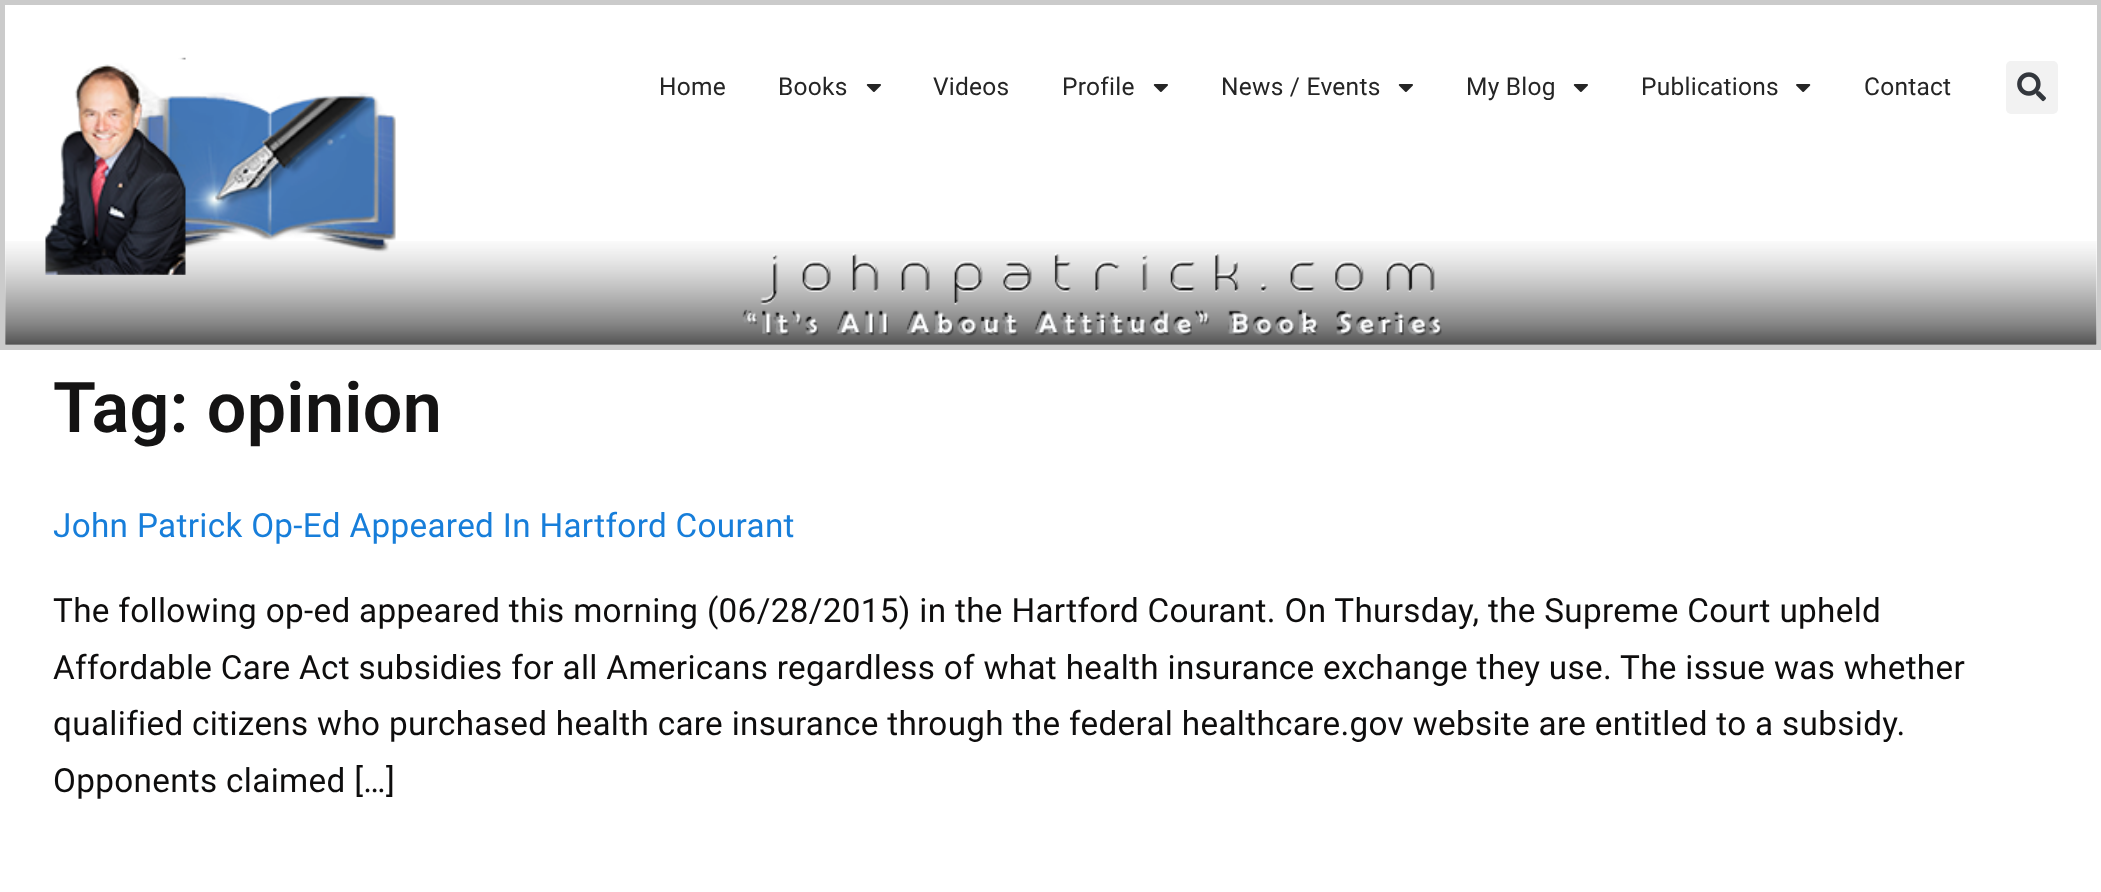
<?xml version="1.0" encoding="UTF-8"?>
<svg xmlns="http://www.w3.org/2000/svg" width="2101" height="892">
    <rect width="100%" height="100%" fill="#FFFFFF"/>
    <image x="5" y="241" width="2092" height="104" href="img_01.png"/>
    <rect x="2.5" y="2.5" width="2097" height="345" fill="none" stroke="#CBCBCB" stroke-width="5"/>
    <image x="45" y="57" width="351" height="218" href="img_02.png"/>
    <text x="659" y="95" font-family="Roboto" font-size="24.5" letter-spacing="0.25" fill="#252525">Home</text>
    <text x="778" y="95" font-family="Roboto" font-size="24.5" letter-spacing="0.25" fill="#252525">Books</text>
    <image x="866" y="84" width="15" height="8" href="img_03.png"/>
    <text x="933" y="95" font-family="Roboto" font-size="24.5" letter-spacing="0.25" fill="#252525">Videos</text>
    <text x="1062" y="95" font-family="Roboto" font-size="24.5" letter-spacing="0.25" fill="#252525">Profile</text>
    <image x="1153" y="84" width="15" height="8" href="img_03.png"/>
    <text x="1221" y="95" font-family="Roboto" font-size="24.5" letter-spacing="0.25" fill="#252525">News / Events</text>
    <image x="1398" y="84" width="15" height="8" href="img_03.png"/>
    <text x="1466" y="95" font-family="Roboto" font-size="24.5" letter-spacing="0.25" fill="#252525">My Blog</text>
    <image x="1573" y="84" width="15" height="8" href="img_03.png"/>
    <text x="1641" y="95" font-family="Roboto" font-size="24.5" letter-spacing="0.25" fill="#252525">Publications</text>
    <image x="1796" y="84" width="15" height="8" href="img_04.png"/>
    <text x="1864" y="95" font-family="Roboto" font-size="24.5" letter-spacing="0.25" fill="#252525">Contact</text>
    <rect x="2006" y="61" width="52" height="53" rx="5" fill="#F2F2F2"/>
    <image x="2017" y="72" width="29" height="30" href="img_05.png"/>
    <text x="53" y="432" font-family="Roboto" font-size="70" font-weight="600" letter-spacing="0.33" fill="#141313">Tag: opinion</text>
    <text x="53" y="537" font-family="Roboto" font-size="33.25" letter-spacing="0.33" fill="#177EDA">John Patrick Op-Ed Appeared In Hartford Courant</text>
    <text font-family="Roboto" font-size="33.25" letter-spacing="0.33" fill="#0E0D0D">
        <tspan x="53" y="622">The following op-ed appeared this morning (06/28/2015) in the Hartford Courant. On Thursday, the Supreme Court upheld</tspan>
        <tspan x="53" y="679">Affordable Care Act subsidies for all Americans regardless of what health insurance exchange they use. The issue was whether</tspan>
        <tspan x="53" y="735">qualified citizens who purchased health care insurance through the federal healthcare.gov website are entitled to a subsidy.</tspan>
        <tspan x="53" y="792">Opponents claimed […]</tspan>
    </text>
</svg>
